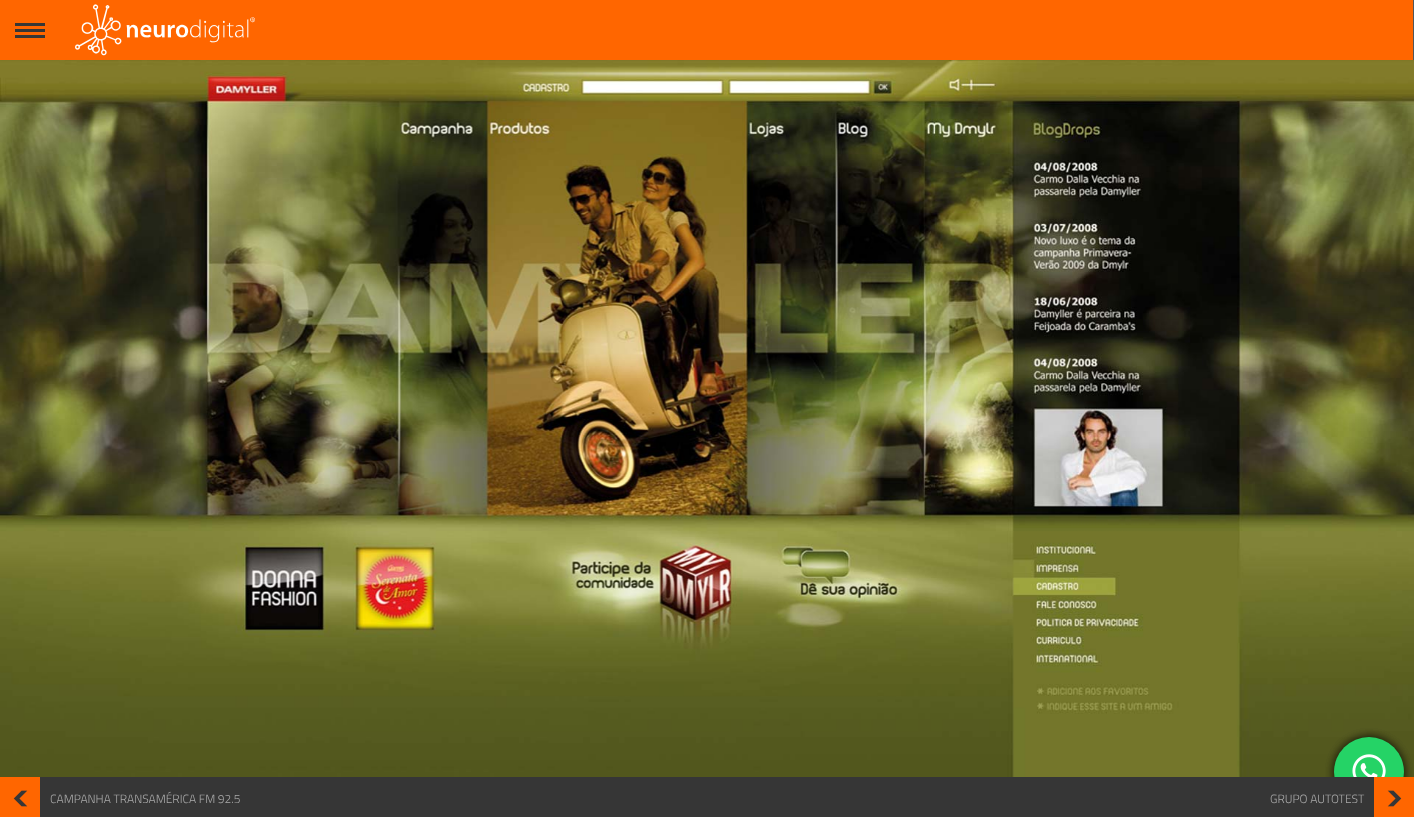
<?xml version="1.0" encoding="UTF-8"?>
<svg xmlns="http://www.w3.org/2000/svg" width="1414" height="817">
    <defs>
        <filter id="blur1" x="-50%" y="-200%" width="200%" height="500%"><feGaussianBlur stdDeviation="5"/></filter>
    </defs>
    <rect width="100%" height="100%" fill="#FFFFFF"/>
    <rect x="0" y="0" width="1413" height="60" fill="#FF6600"/>
    <rect x="15" y="23" width="30" height="3" fill="#363636"/>
    <rect x="15" y="29" width="30" height="3" fill="#363636"/>
    <rect x="15" y="35" width="30" height="3" fill="#363636"/>
    <image x="75" y="4" width="180" height="52" href="img_01.png"/>
    <rect x="1413" y="0" width="1" height="60" fill="#555555"/>
    <image x="0" y="60" width="1414" height="717" href="img_02.png"/>
    <rect x="1334" y="737" width="70" height="70" rx="35" fill="#000000" fill-opacity="0.5" filter="url(#blur1)"/>
    <rect x="1334" y="737" width="70" height="70" rx="35" fill="#000000" fill-opacity="0.5" filter="url(#blur1)"/>
    <circle cx="1369" cy="772" r="35" fill="#25D366"/>
    <rect x="40" y="777" width="1334" height="40" fill="#363636"/>
    <rect x="0" y="777" width="40" height="40" fill="#FF6600"/>
    <image x="13" y="790" width="15" height="17" href="img_03.png"/>
    <text x="50" y="803" font-family="Titillium Web" font-size="12" font-weight="300" fill="#AAAAAA">CAMPANHA TRANSAMÉRICA FM 92.5</text>
    <text x="1270" y="803" font-family="Titillium Web" font-size="12" font-weight="300" fill="#AAAAAA">GRUPO AUTOTEST</text>
    <rect x="1374" y="777" width="40" height="40" fill="#FF6600"/>
    <image x="1387" y="790" width="15" height="17" href="img_04.png"/>
    <image x="1352" y="754" width="34" height="23" href="img_05.png"/>
</svg>
